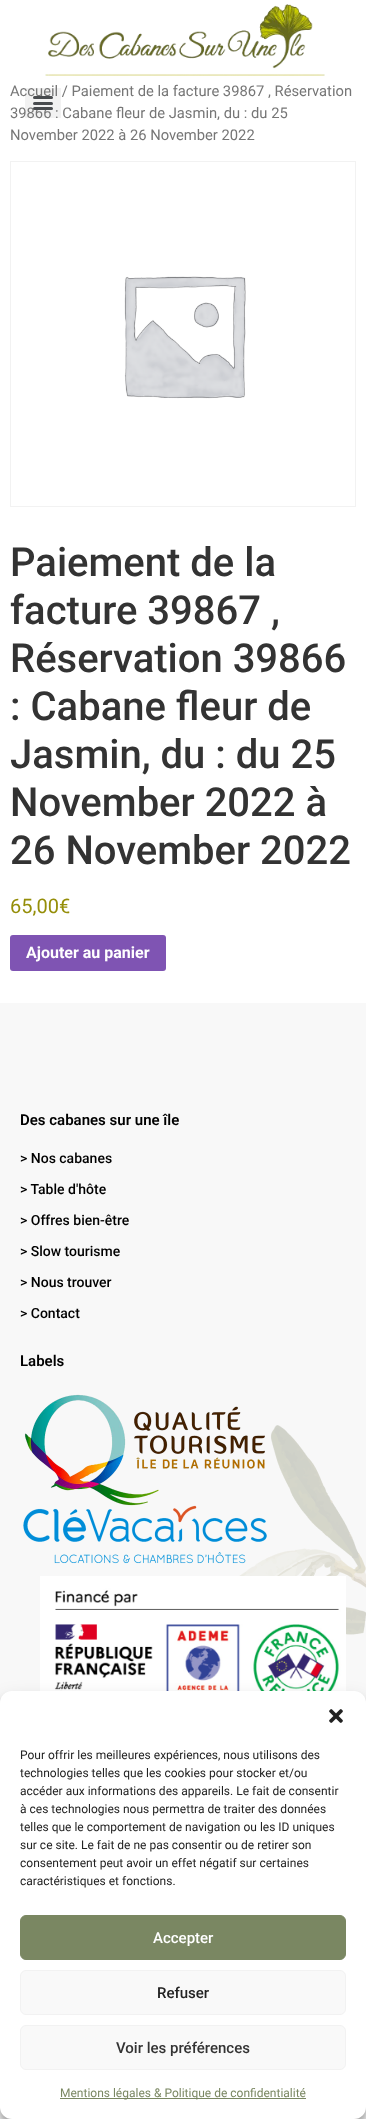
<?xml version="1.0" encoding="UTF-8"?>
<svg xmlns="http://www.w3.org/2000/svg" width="366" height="2119">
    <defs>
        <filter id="blur1" x="-50%" y="-200%" width="200%" height="500%"><feGaussianBlur stdDeviation="3"/></filter>
        <filter id="blur2" x="-50%" y="-200%" width="200%" height="500%"><feGaussianBlur stdDeviation="10"/></filter>
    </defs>
    <rect width="100%" height="100%" fill="#FFFFFF"/>
    <image x="45" y="4" width="280" height="72" href="img_01.png"/>
    <rect x="25" y="88" width="36" height="30" fill="#000000" fill-opacity="0.05"/>
    <rect x="33" y="102" width="20" height="3" rx="1.5" fill="#494C4F"/>
    <text x="10" y="96" font-family="Roboto" font-size="14.75" fill="#767676">Accueil / Paiement de la facture 39867 , Réservation</text>
    <rect x="33" y="96" width="20" height="3" rx="1.5" fill="#494C4F"/>
    <text x="10" y="118" font-family="Roboto" font-size="14.75" fill="#767676">39866 : Cabane fleur de Jasmin, du : du 25</text>
    <rect x="33" y="107" width="20" height="3" rx="1.5" fill="#494C4F"/>
    <text x="10" y="140" font-family="Roboto" font-size="14.75" fill="#767676">November 2022 à 26 November 2022</text>
    <rect x="10.5" y="161.5" width="345" height="345" fill="none" stroke="#F2F2F2"/>
    <image x="124" y="276" width="122" height="123" href="img_02.png"/>
    <text font-family="Roboto" font-size="40" font-weight="500" fill="#333333">
        <tspan x="10" y="576">Paiement de la</tspan>
        <tspan x="10" y="624">facture 39867 ,</tspan>
        <tspan x="10" y="672">Réservation 39866</tspan>
        <tspan x="10" y="720">: Cabane fleur de</tspan>
        <tspan x="10" y="768">Jasmin, du : du 25</tspan>
        <tspan x="10" y="816">November 2022 à</tspan>
        <tspan x="10" y="864">26 November 2022</tspan>
    </text>
    <text x="10" y="913" font-family="Roboto" font-size="20" fill="#958E09">65,00€</text>
    <rect x="10" y="935" width="156" height="36" rx="3" fill="#7F54B3"/>
    <text x="26" y="958" font-family="Roboto" font-size="16" font-weight="700" fill="#FFFFFF">Ajouter au panier</text>
    <rect x="0" y="1003" width="366" height="1116" fill="#F8F8F8"/>
    <image x="239" y="1425" width="127" height="210" href="img_03.png"/>
    <text x="20" y="1125" font-family="Roboto" font-size="15" font-weight="600" fill="#000000">Des cabanes sur une île</text>
    <text x="20" y="1163" font-family="Roboto" font-size="14" font-weight="500" fill="#000000">&gt; Nos cabanes</text>
    <text x="20" y="1194" font-family="Roboto" font-size="14" font-weight="500" fill="#000000">&gt; Table d'hôte</text>
    <text x="20" y="1225" font-family="Roboto" font-size="14" font-weight="500" fill="#000000">&gt; Offres bien-être</text>
    <text x="20" y="1256" font-family="Roboto" font-size="14" font-weight="500" fill="#000000">&gt; Slow tourisme</text>
    <text x="20" y="1287" font-family="Roboto" font-size="14" font-weight="500" fill="#000000">&gt; Nous trouver</text>
    <text x="20" y="1318" font-family="Roboto" font-size="14" font-weight="500" fill="#000000">&gt; Contact</text>
    <text x="20" y="1366" font-family="Roboto" font-size="15" font-weight="600" fill="#000000">Labels</text>
    <image x="23" y="1394" width="244" height="170" href="img_04.png"/>
    <image x="40" y="1576" width="306" height="115" href="img_05.png"/>
    <rect x="0" y="1697" width="366" height="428" rx="12" fill="#000000" fill-opacity="0.23" filter="url(#blur1)"/>
    <rect x="0" y="1701" width="366" height="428" rx="12" fill="#000000" fill-opacity="0.19" filter="url(#blur2)"/>
    <rect x="0" y="1691" width="366" height="428" rx="12" fill="#FFFFFF"/>
    <image x="329" y="1709" width="14" height="14" href="img_06.png"/>
    <text font-family="Roboto" font-size="12" fill="#222222">
        <tspan x="20" y="1759">Pour offrir les meilleures expériences, nous utilisons des</tspan>
        <tspan x="20" y="1777">technologies telles que les cookies pour stocker et/ou</tspan>
        <tspan x="20" y="1795">accéder aux informations des appareils. Le fait de consentir</tspan>
        <tspan x="20" y="1813">à ces technologies nous permettra de traiter des données</tspan>
        <tspan x="20" y="1831">telles que le comportement de navigation ou les ID uniques</tspan>
        <tspan x="20" y="1849">sur ce site. Le fait de ne pas consentir ou de retirer son</tspan>
        <tspan x="20" y="1867">consentement peut avoir un effet négatif sur certaines</tspan>
        <tspan x="20" y="1885">caractéristiques et fonctions.</tspan>
    </text>
    <rect x="20.5" y="1915.5" width="325" height="44" rx="5.5" fill="#7A8762" stroke="#7A8762"/>
    <text x="153" y="1943" font-family="Roboto" font-size="15" font-weight="500" fill="#FFFFFF">Accepter</text>
    <rect x="20.5" y="1970.5" width="325" height="44" rx="5.5" fill="#F9F9F9" stroke="#F2F2F2"/>
    <text x="157" y="1998" font-family="Roboto" font-size="15" font-weight="500" fill="#222222">Refuser</text>
    <rect x="20.5" y="2025.5" width="325" height="44" rx="5.5" fill="#F9F9F9" stroke="#F2F2F2"/>
    <text x="116" y="2053" font-family="Roboto" font-size="15" font-weight="500" fill="#333333">Voir les préférences</text>
    <rect x="60" y="2098" width="246" height="1" fill="#7A8762"/>
    <text x="60" y="2097" font-family="Roboto" font-size="12" fill="#7A8762">Mentions légales &amp; Politique de confidentialité</text>
</svg>
